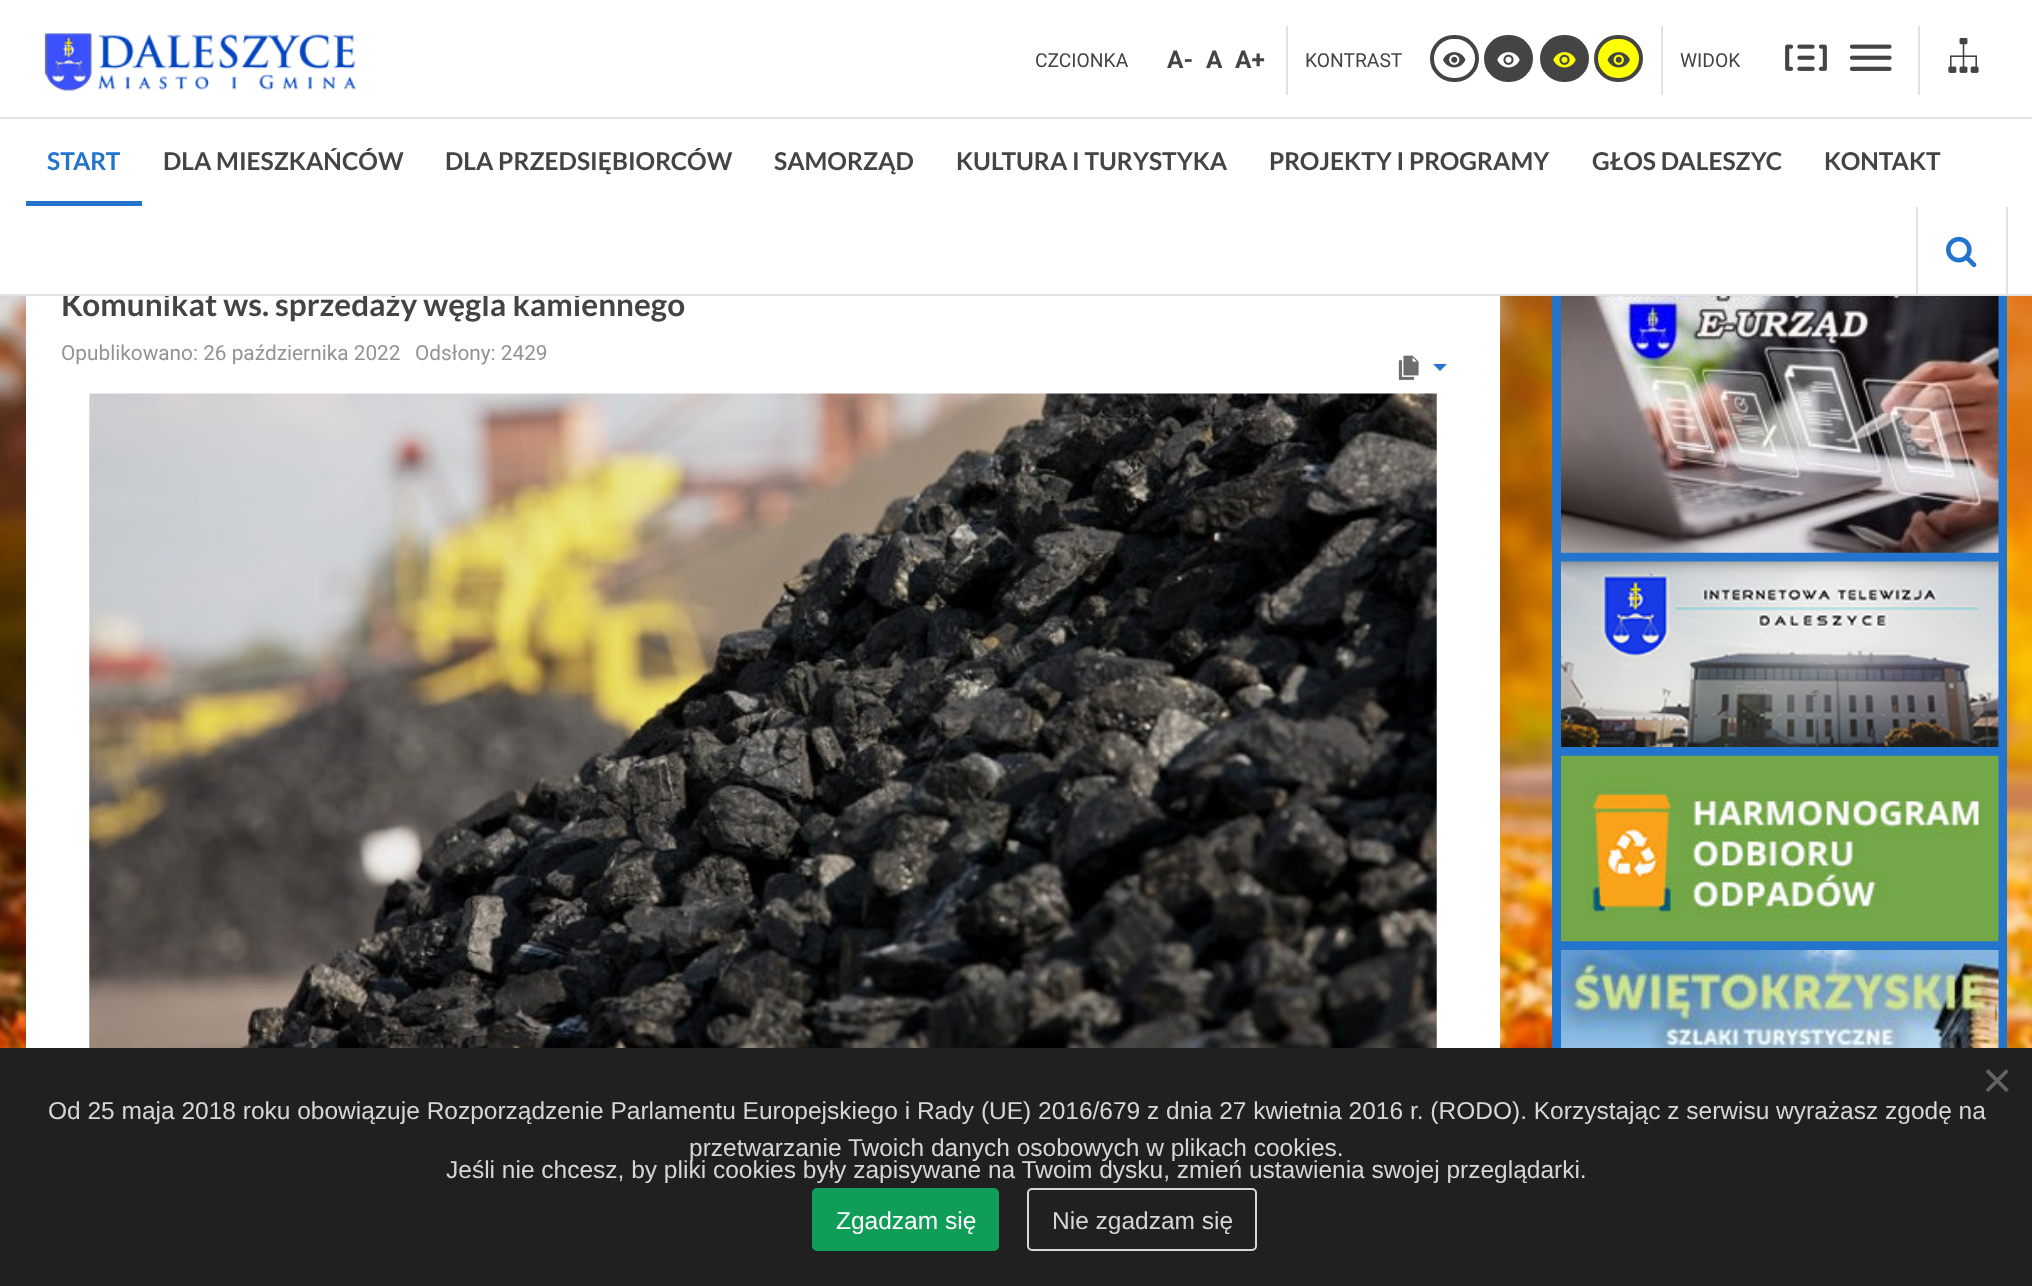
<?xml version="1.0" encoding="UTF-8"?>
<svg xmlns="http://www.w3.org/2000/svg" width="2032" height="1286">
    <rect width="100%" height="100%" fill="#FFFFFF"/>
    <image x="0" y="296" width="2032" height="752" href="img_01.png"/>
    <rect x="26" y="296" width="1474" height="752" fill="#FFFFFF"/>
    <text x="61" y="316" font-family="Lato" font-size="31.5" font-weight="700" fill="#444444">Komunikat ws. sprzedaży węgla kamiennego</text>
    <rect x="0" y="294" width="2032" height="2" fill="#E2E2E2"/>
    <image x="44" y="33" width="313" height="59" href="img_02.png"/>
    <text x="1035" y="67" font-family="Roboto" font-size="19.25" fill="#444444">CZCIONKA</text>
    <text x="1167" y="68" font-family="Roboto" font-size="24.5" font-weight="700" fill="#444444">A-</text>
    <text x="1206" y="68" font-family="Roboto" font-size="24.5" font-weight="700" fill="#444444">A</text>
    <text x="1235" y="68" font-family="Roboto" font-size="24.5" font-weight="700" fill="#444444">A+</text>
    <rect x="1286" y="26" width="2" height="69" fill="#E2E2E2"/>
    <text x="1305" y="67" font-family="Roboto" font-size="19.25" fill="#444444">KONTRAST</text>
    <rect x="1432" y="37" width="45" height="43" rx="21.5" fill="none" stroke="#444444" stroke-width="4"/>
    <image x="1443" y="52" width="23" height="16" href="img_03.png"/>
    <rect x="1486" y="37" width="45" height="43" rx="21.5" fill="#444444" stroke="#444444" stroke-width="4"/>
    <image x="1497" y="52" width="23" height="16" href="img_04.png"/>
    <rect x="1542" y="37" width="45" height="43" rx="21.5" fill="#444444" stroke="#444444" stroke-width="4"/>
    <image x="1553" y="52" width="23" height="16" href="img_05.png"/>
    <rect x="1596" y="37" width="45" height="43" rx="21.5" fill="#FFFF00" stroke="#444444" stroke-width="4"/>
    <image x="1607" y="52" width="23" height="16" href="img_06.png"/>
    <rect x="1661" y="26" width="2" height="69" fill="#E2E2E2"/>
    <text x="1680" y="67" font-family="Roboto" font-size="19.25" fill="#444444">WIDOK</text>
    <image x="1785" y="44" width="42" height="27" href="img_07.png"/>
    <image x="1849" y="44" width="43" height="27" href="img_08.png"/>
    <rect x="1918" y="26" width="2" height="69" fill="#E2E2E2"/>
    <image x="1948" y="37" width="31" height="36" href="img_09.png"/>
    <rect x="63" y="292" width="517" height="2" fill="#FFFFFF"/>
    <rect x="0" y="117" width="2032" height="2" fill="#E2E2E2"/>
    <rect x="26" y="201" width="116" height="5" fill="#2374CD"/>
    <text x="47" y="170" font-family="Lato" font-size="24.5" font-weight="700" fill="#2374CD">START</text>
    <text x="163" y="170" font-family="Lato" font-size="24.5" font-weight="700" fill="#444444">DLA MIESZKAŃCÓW</text>
    <text x="445" y="170" font-family="Lato" font-size="24.5" font-weight="700" fill="#444444">DLA PRZEDSIĘBIORCÓW</text>
    <text x="774" y="170" font-family="Lato" font-size="24.5" font-weight="700" fill="#444444">SAMORZĄD</text>
    <text x="956" y="170" font-family="Lato" font-size="24.5" font-weight="700" fill="#444444">KULTURA I TURYSTYKA</text>
    <text x="1269" y="170" font-family="Lato" font-size="24.5" font-weight="700" fill="#444444">PROJEKTY I PROGRAMY</text>
    <text x="1592" y="170" font-family="Lato" font-size="24.5" font-weight="700" fill="#444444">GŁOS DALESZYC</text>
    <text x="1824" y="170" font-family="Lato" font-size="24.5" font-weight="700" fill="#444444">KONTAKT</text>
    <rect x="2006" y="207" width="2" height="87" fill="#E2E2E2"/>
    <rect x="1916" y="207" width="2" height="87" fill="#E2E2E2"/>
    <image x="1946" y="236" width="31" height="32" href="img_10.png"/>
    <text x="61" y="360" font-family="Roboto" font-size="20.8" fill="#939393">Opublikowano: 26 października 2022</text>
    <text x="415" y="360" font-family="Roboto" font-size="20.8" fill="#939393">Odsłony: 2429</text>
    <image x="1398" y="355" width="21" height="25" href="img_11.png"/>
    <path d="M 1433 364 H 1447 L 1440 371 Z" fill="#2374CD"/>
    <image x="89" y="393" width="1348" height="655" href="img_12.png"/>
    <rect x="1552" y="296" width="455" height="752" fill="#2374CD"/>
    <image x="1561" y="296" width="438" height="257" href="img_13.png"/>
    <image x="1561" y="561" width="438" height="186" href="img_14.png"/>
    <image x="1561" y="755" width="438" height="187" href="img_15.png"/>
    <image x="1561" y="950" width="438" height="98" href="img_16.png"/>
    <rect x="0" y="1048" width="2032" height="238" fill="#202020"/>
    <text x="1982" y="1098" font-family="Liberation Sans" font-size="52" fill="#636363">×</text>
    <text x="48" y="1119" font-family="Liberation Sans" font-size="24.5" fill="#D6D6D6">Od 25 maja 2018 roku obowiązuje Rozporządzenie Parlamentu Europejskiego i Rady (UE) 2016/679 z dnia 27 kwietnia 2016 r. (RODO). Korzystając z serwisu wyrażasz zgodę na</text>
    <text x="689" y="1156" font-family="Liberation Sans" font-size="24.5" fill="#D6D6D6">przetwarzanie Twoich danych osobowych w plikach cookies.</text>
    <text x="446" y="1178" font-family="Liberation Sans" font-size="24.5" fill="#D6D6D6">Jeśli nie chcesz, by pliki cookies były zapisywane na Twoim dysku, zmień ustawienia swojej przeglądarki.</text>
    <rect x="812" y="1188" width="187" height="63" rx="5" fill="#0F9D58"/>
    <text x="836" y="1229" font-family="Liberation Sans" font-size="24.5" fill="#FFFFFF">Zgadzam się</text>
    <rect x="1028" y="1189" width="228" height="61" rx="4" fill="none" stroke="#D6D6D6" stroke-width="2"/>
    <text x="1052" y="1229" font-family="Liberation Sans" font-size="24.5" fill="#D6D6D6">Nie zgadzam się</text>
</svg>
